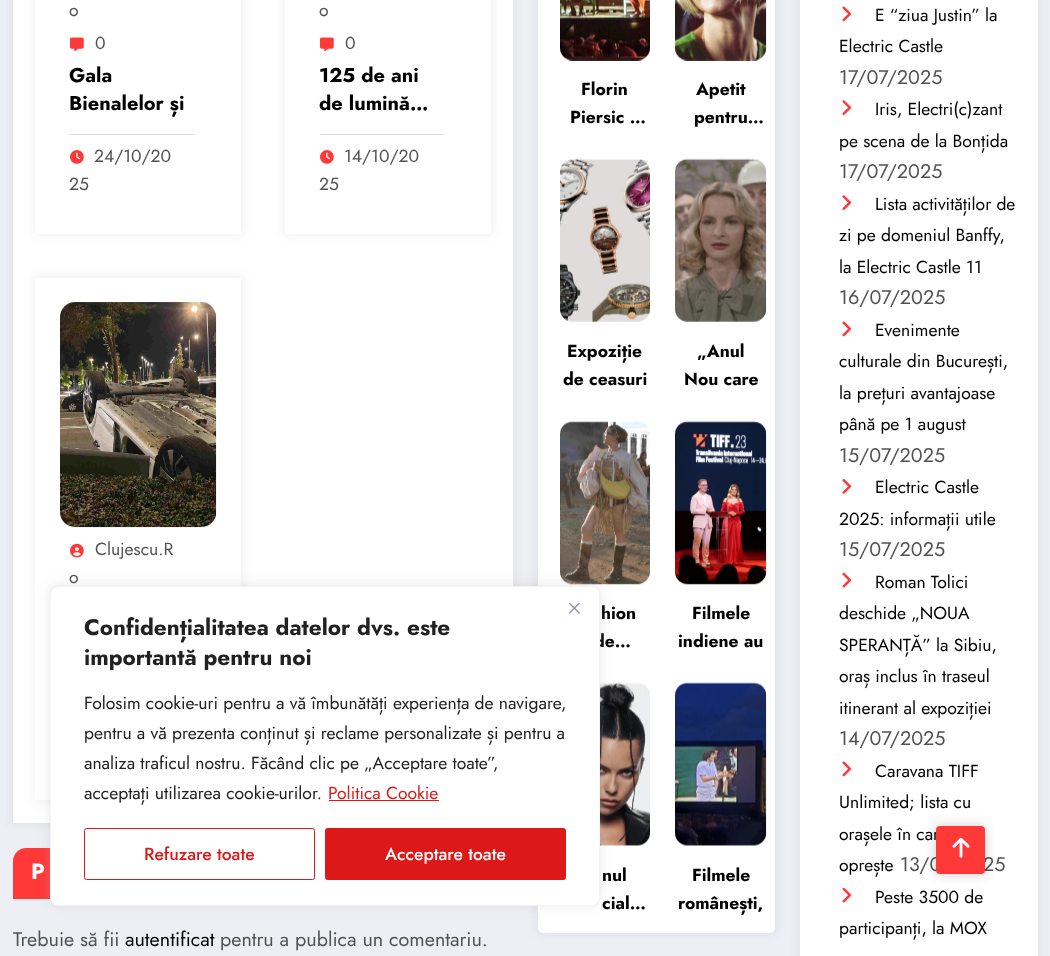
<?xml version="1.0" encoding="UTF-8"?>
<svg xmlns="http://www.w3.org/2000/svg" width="1050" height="956">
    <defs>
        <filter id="blur1" x="-50%" y="-200%" width="200%" height="500%"><feGaussianBlur stdDeviation="5"/></filter>
        <filter id="blur2" x="-50%" y="-200%" width="200%" height="500%"><feGaussianBlur stdDeviation="6"/></filter>
    </defs>
    <rect width="100%" height="100%" fill="#EEEEF5"/>
    <rect x="10" y="-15" width="505" height="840" fill="#171723" fill-opacity="0.05" filter="url(#blur1)"/>
    <rect x="13" y="0" width="500" height="823" fill="#FFFFFF"/>
    <rect x="33" y="-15" width="211" height="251" fill="#171723" fill-opacity="0.05" filter="url(#blur1)"/>
    <rect x="35" y="0" width="206" height="234" fill="#FFFFFF"/>
    <rect x="70" y="134" width="124" height="1" fill="#D7D7D7"/>
    <text x="69" y="16" font-family="Jost" font-size="17.5" fill="#525252">o</text>
    <image x="70" y="37" width="14" height="15" href="img_01.png"/>
    <text x="95" y="49" font-family="Jost" font-size="17.5" fill="#525252">0</text>
    <text font-family="Jost" font-size="20" font-weight="700" fill="#000000">
        <tspan x="69" y="82">Gala</tspan>
        <tspan x="69" y="110">Bienalelor și</tspan>
    </text>
    <image x="70" y="150" width="14" height="14" href="img_02.png"/>
    <text x="94" y="162" font-family="Jost" font-size="17.5" fill="#525252">24/10/20</text>
    <text x="69" y="190" font-family="Jost" font-size="17.5" fill="#525252">25</text>
    <rect x="283" y="-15" width="211" height="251" fill="#171723" fill-opacity="0.05" filter="url(#blur1)"/>
    <rect x="285" y="0" width="206" height="234" fill="#FFFFFF"/>
    <rect x="320" y="134" width="124" height="1" fill="#D7D7D7"/>
    <text x="319" y="16" font-family="Jost" font-size="17.5" fill="#525252">o</text>
    <image x="320" y="37" width="14" height="15" href="img_01.png"/>
    <text x="345" y="49" font-family="Jost" font-size="17.5" fill="#525252">0</text>
    <text font-family="Jost" font-size="20" font-weight="700" fill="#000000">
        <tspan x="319" y="82">125 de ani</tspan>
        <tspan x="319" y="110">de lumină…</tspan>
    </text>
    <image x="320" y="150" width="14" height="14" href="img_02.png"/>
    <text x="344" y="162" font-family="Jost" font-size="17.5" fill="#525252">14/10/20</text>
    <text x="319" y="190" font-family="Jost" font-size="17.5" fill="#525252">25</text>
    <rect x="33" y="275" width="211" height="528" fill="#171723" fill-opacity="0.05" filter="url(#blur1)"/>
    <rect x="35" y="278" width="206" height="522" fill="#FFFFFF"/>
    <image x="60" y="302" width="157" height="226" href="img_03.png"/>
    <image x="70" y="543" width="14" height="15" href="img_04.png"/>
    <text x="95" y="555" font-family="Jost" font-size="17.5" fill="#525252">Clujescu.R</text>
    <text x="69" y="583" font-family="Jost" font-size="17.5" fill="#525252">o</text>
    <rect x="13" y="898" width="38" height="1" fill="#FF3838"/>
    <path d="M 26 848 H 342 C 349 848 355 854 355 861 V 898 H 13 V 861 C 13 854 19 848 26 848 Z" fill="#FF3838"/>
    <text x="31" y="879" word-spacing="-1" font-family="Jost" font-size="22" font-weight="700" letter-spacing="2" fill="#FFFFFF">P</text>
    <text x="13" y="946" font-family="Jost" font-size="19.75" fill="#525252">Trebuie să fii</text>
    <text x="125" y="946" font-family="Jost" font-size="19.75" fill="#000000">autentificat</text>
    <text x="220" y="946" font-family="Jost" font-size="19.75" fill="#525252">pentru a publica un comentariu.</text>
    <rect x="535" y="-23" width="243" height="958" rx="8" fill="#171723" fill-opacity="0.05" filter="url(#blur1)"/>
    <rect x="538" y="-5" width="237" height="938" rx="5" fill="#FFFFFF"/>
    <image x="560" y="0" width="90" height="61" href="img_05.png"/>
    <text x="581" y="95" font-family="Jost" font-size="17.5" font-weight="700" fill="#000000">Florin</text>
    <text x="570" y="123" font-family="Jost" font-size="17.5" font-weight="700" fill="#000000">Piersic …</text>
    <image x="675" y="0" width="92" height="61" href="img_06.png"/>
    <text x="696" y="95" font-family="Jost" font-size="17.5" font-weight="700" fill="#000000">Apetit</text>
    <text x="694" y="123" font-family="Jost" font-size="17.5" font-weight="700" fill="#000000">pentru…</text>
    <image x="560" y="158" width="90" height="164" href="img_07.png"/>
    <text x="567" y="357" font-family="Jost" font-size="17.5" font-weight="700" fill="#000000">Expoziție</text>
    <text x="563" y="385" font-family="Jost" font-size="17.5" font-weight="700" fill="#000000">de ceasuri</text>
    <image x="675" y="158" width="92" height="164" href="img_08.png"/>
    <text x="697" y="357" font-family="Jost" font-size="17.5" font-weight="700" fill="#000000">„Anul</text>
    <text x="684" y="385" font-family="Jost" font-size="17.5" font-weight="700" fill="#000000">Nou care</text>
    <image x="560" y="421" width="90" height="164" href="img_09.png"/>
    <text x="601" y="619" font-family="Jost" font-size="17.5" font-weight="700" fill="#000000">hion</text>
    <text x="594" y="647" font-family="Jost" font-size="17.5" font-weight="700" fill="#000000">de…</text>
    <image x="675" y="421" width="92" height="164" href="img_10.png"/>
    <text x="692" y="619" font-family="Jost" font-size="17.5" font-weight="700" fill="#000000">Filmele</text>
    <text x="678" y="647" font-family="Jost" font-size="17.5" font-weight="700" fill="#000000">indiene au</text>
    <image x="600" y="682" width="50" height="164" href="img_11.png"/>
    <text font-family="Jost" font-size="17.5" font-weight="700" fill="#000000">
        <tspan x="602" y="881">nul</tspan>
        <tspan x="602" y="909">cial…</tspan>
    </text>
    <image x="675" y="682" width="92" height="164" href="img_12.png"/>
    <text x="692" y="881" font-family="Jost" font-size="17.5" font-weight="700" fill="#000000">Filmele</text>
    <text x="678" y="909" font-family="Jost" font-size="17.5" font-weight="700" fill="#000000">românești,</text>
    <rect x="798" y="-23" width="242" height="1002" rx="8" fill="#171723" fill-opacity="0.05" filter="url(#blur1)"/>
    <rect x="800" y="0" width="238" height="956" fill="#FFFFFF"/>
    <image x="842" y="6" width="10" height="16" href="img_13.png"/>
    <text x="875" y="21" font-family="Jost" font-size="17.5" fill="#000000">E “ziua Justin” la</text>
    <text x="839" y="52" font-family="Jost" font-size="17.5" fill="#000000">Electric Castle</text>
    <text x="839" y="84" font-family="Jost" font-size="19.75" fill="#525252">17/07/2025</text>
    <image x="842" y="100" width="10" height="15" href="img_14.png"/>
    <text x="875" y="115" font-family="Jost" font-size="17.5" fill="#000000">Iris, Electri(c)zant</text>
    <text x="839" y="147" font-family="Jost" font-size="17.5" fill="#000000">pe scena de la Bonțida</text>
    <text x="839" y="178" font-family="Jost" font-size="19.75" fill="#525252">17/07/2025</text>
    <image x="842" y="195" width="10" height="15" href="img_14.png"/>
    <text x="875" y="210" font-family="Jost" font-size="17.5" fill="#000000">Lista activităților de</text>
    <text font-family="Jost" font-size="17.5" fill="#000000">
        <tspan x="839" y="241">zi pe domeniul Banffy,</tspan>
        <tspan x="839" y="273">la Electric Castle 11</tspan>
    </text>
    <text x="839" y="304" font-family="Jost" font-size="19.75" fill="#525252">16/07/2025</text>
    <image x="842" y="321" width="10" height="16" href="img_13.png"/>
    <text x="875" y="336" font-family="Jost" font-size="17.5" fill="#000000">Evenimente</text>
    <text font-family="Jost" font-size="17.5" fill="#000000">
        <tspan x="839" y="367">culturale din București,</tspan>
        <tspan x="839" y="399">la prețuri avantajoase</tspan>
        <tspan x="839" y="430">până pe 1 august</tspan>
    </text>
    <text x="839" y="462" font-family="Jost" font-size="19.75" fill="#525252">15/07/2025</text>
    <image x="842" y="479" width="10" height="15" href="img_15.png"/>
    <text x="875" y="493" font-family="Jost" font-size="17.5" fill="#000000">Electric Castle</text>
    <text x="839" y="525" font-family="Jost" font-size="17.5" fill="#000000">2025: informații utile</text>
    <text x="839" y="556" font-family="Jost" font-size="19.75" fill="#525252">15/07/2025</text>
    <image x="842" y="572" width="10" height="16" href="img_16.png"/>
    <text x="875" y="588" font-family="Jost" font-size="17.5" fill="#000000">Roman Tolici</text>
    <text font-family="Jost" font-size="17.5" fill="#000000">
        <tspan x="839" y="619">deschide „NOUA</tspan>
        <tspan x="839" y="651">SPERANȚĂ” la Sibiu,</tspan>
        <tspan x="839" y="682">oraș inclus în traseul</tspan>
        <tspan x="839" y="714">itinerant al expoziției</tspan>
    </text>
    <text x="839" y="745" font-family="Jost" font-size="19.75" fill="#525252">14/07/2025</text>
    <image x="842" y="761" width="10" height="16" href="img_13.png"/>
    <text x="875" y="777" font-family="Jost" font-size="17.5" fill="#000000">Caravana TIFF</text>
    <text font-family="Jost" font-size="17.5" fill="#000000">
        <tspan x="839" y="808">Unlimited; lista cu</tspan>
        <tspan x="839" y="840">orașele în car</tspan>
        <tspan x="839" y="871">oprește</tspan>
    </text>
    <text x="900" y="871" font-family="Jost" font-size="19.75" fill="#525252">13/0</text>
    <text x="983" y="871" font-family="Jost" font-size="19.75" fill="#525252">25</text>
    <image x="842" y="887" width="10" height="16" href="img_16.png"/>
    <text x="875" y="903" font-family="Jost" font-size="17.5" fill="#000000">Peste 3500 de</text>
    <text x="839" y="934" font-family="Jost" font-size="17.5" fill="#000000">participanți, la MOX</text>
    <rect x="936" y="826" width="49" height="48" rx="4" fill="#000000" fill-opacity="0.2" filter="url(#blur2)"/>
    <rect x="936" y="826" width="49" height="48" rx="4" fill="#FF3838"/>
    <image x="952" y="837" width="18" height="21" href="img_17.png"/>
    <rect x="50" y="585" width="550" height="320" rx="8" fill="#ACABAB" fill-opacity="0.3" filter="url(#blur2)"/>
    <rect x="50.5" y="586.5" width="549" height="319" rx="7.5" fill="#FFFFFF" stroke="#F4F4F4"/>
    <image x="569" y="603" width="11" height="11" href="img_18.png"/>
    <text font-family="Jost" font-size="22.5" font-weight="700" fill="#212121">
        <tspan x="84" y="635">Confidențialitatea datelor dvs. este</tspan>
        <tspan x="84" y="665">importantă pentru noi</tspan>
    </text>
    <text font-family="Jost" font-size="17.5" fill="#212121">
        <tspan x="84" y="709">Folosim cookie-uri pentru a vă îmbunătăți experiența de navigare,</tspan>
        <tspan x="84" y="739">pentru a vă prezenta conținut și reclame personalizate și pentru a</tspan>
        <tspan x="84" y="769">analiza traficul nostru. Făcând clic pe „Acceptare toate”,</tspan>
        <tspan x="84" y="799">acceptați utilizarea cookie-urilor.</tspan>
    </text>
    <text x="328" y="799" font-family="Jost" font-size="17.5" fill="#DC1818">Politica Cookie</text>
    <rect x="329" y="800" width="110" height="1" fill="#DC1818"/>
    <rect x="84.5" y="828.5" width="230" height="51" rx="2" fill="none" stroke="#DC1818"/>
    <text x="144" y="860" font-family="Jost" font-size="17.5" font-weight="500" fill="#DC1818">Refuzare toate</text>
    <rect x="325.5" y="828.5" width="240" height="51" rx="2" fill="#DC1818" stroke="#DC1818"/>
    <text x="385" y="860" font-family="Jost" font-size="17.5" font-weight="500" fill="#FFFFFF">Acceptare toate</text>
</svg>
